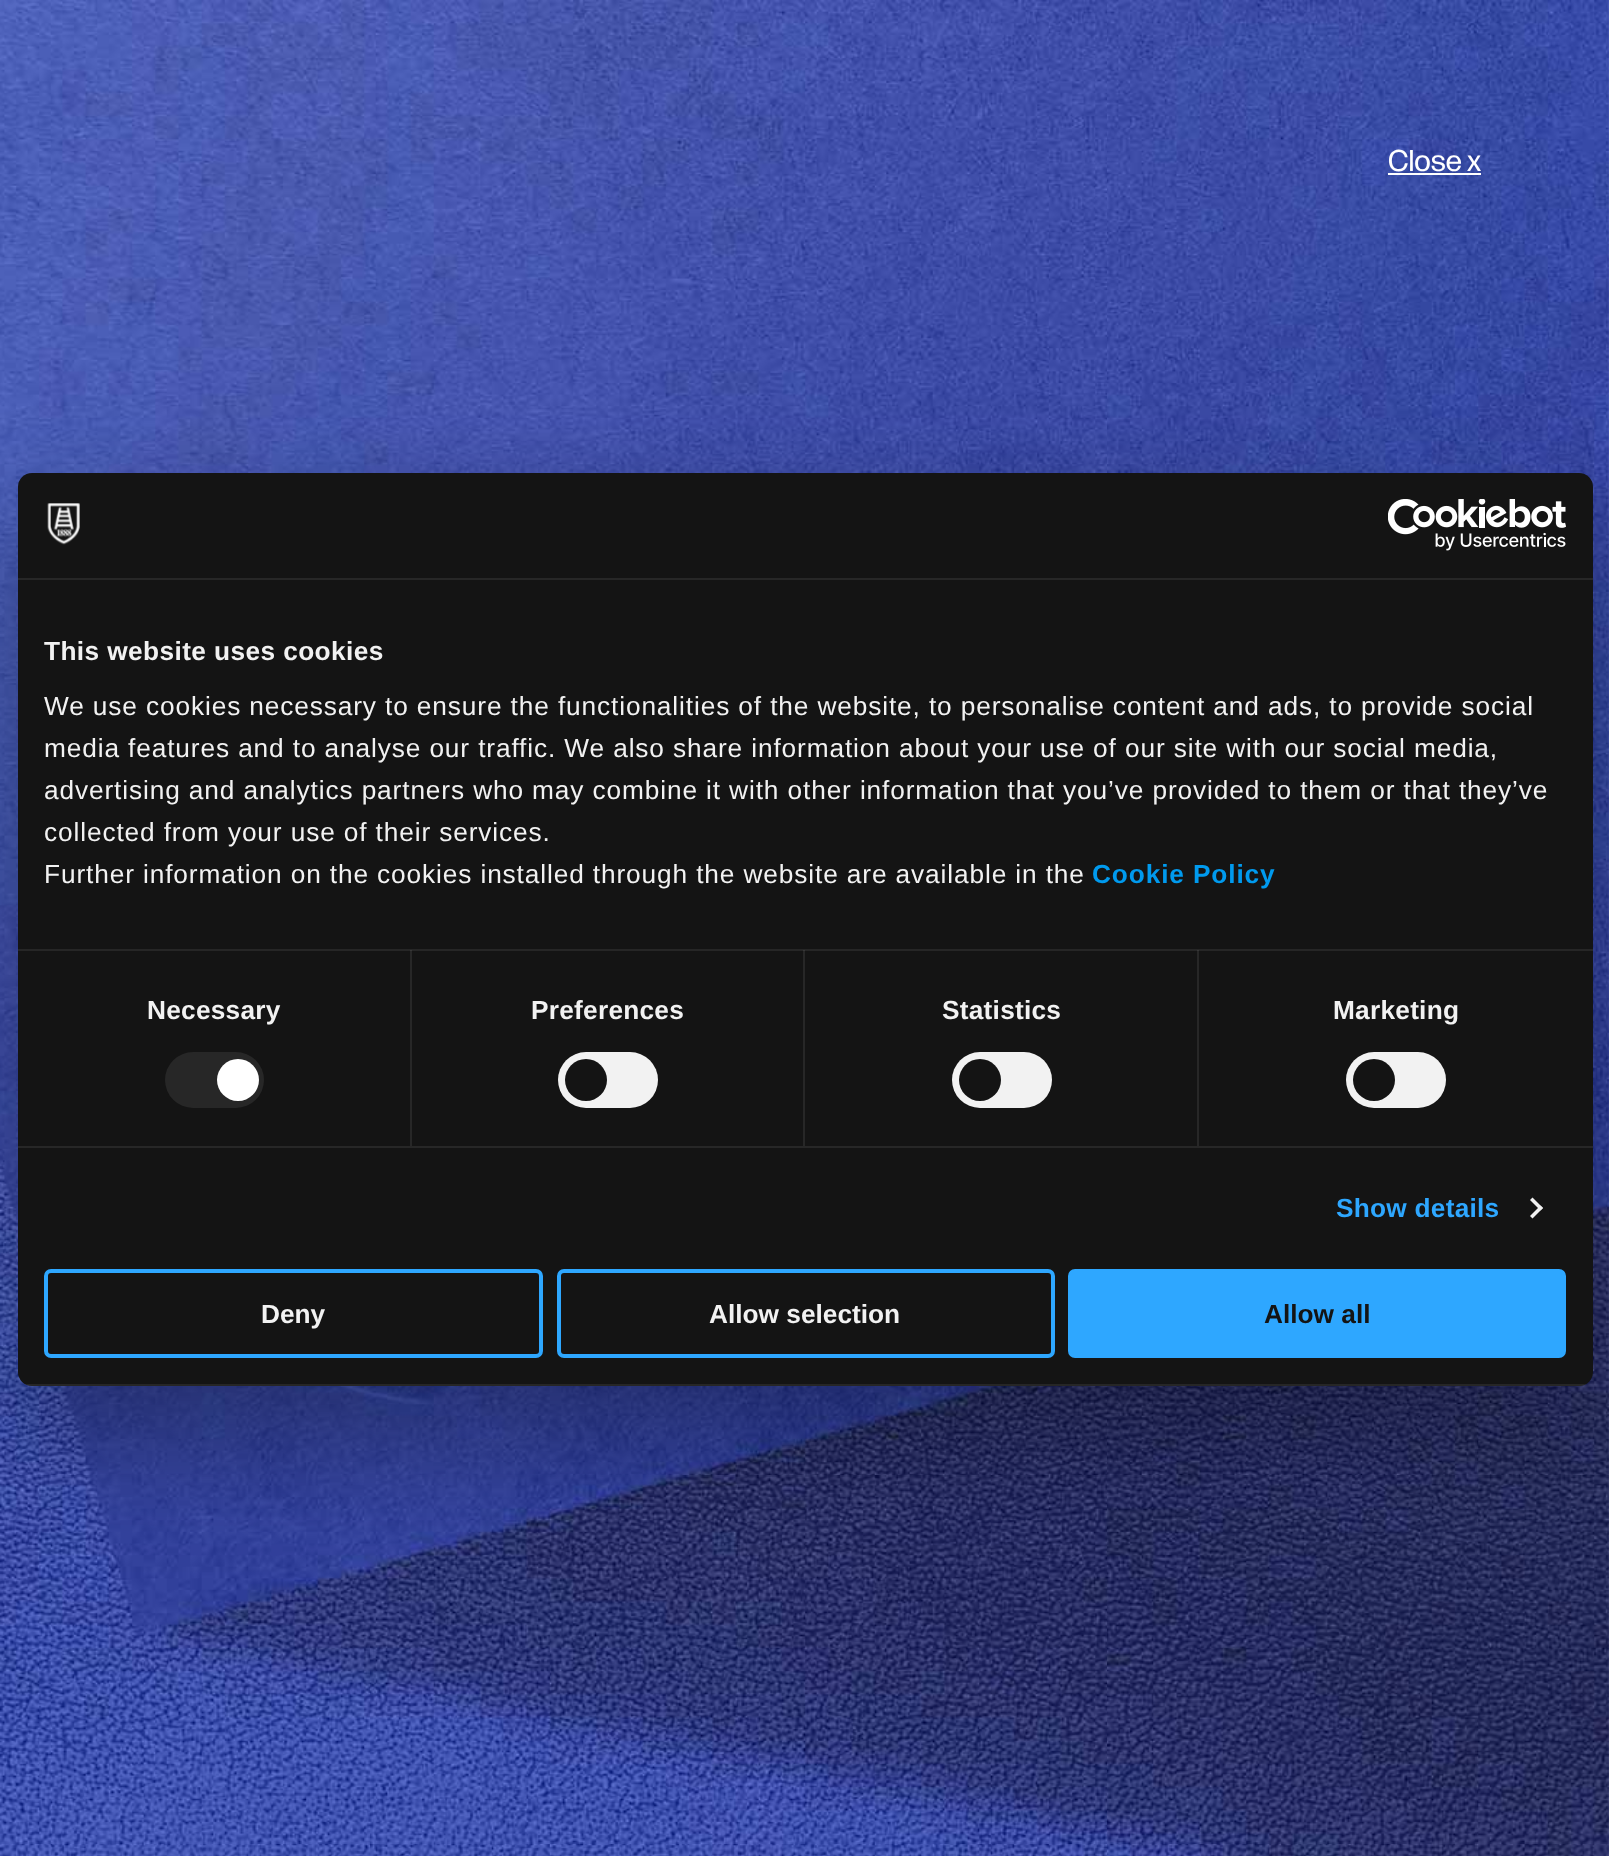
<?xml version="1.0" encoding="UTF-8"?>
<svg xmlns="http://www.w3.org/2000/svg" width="1609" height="1856">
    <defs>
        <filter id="blur1" x="-50%" y="-200%" width="200%" height="500%"><feGaussianBlur stdDeviation="59.5"/></filter>
        <clipPath id="clip1"><rect x="18" y="473" width="1575" height="913" rx="14"/></clipPath>
    </defs>
    <rect width="100%" height="100%" fill="#FFFFFF"/>
    <image x="0" y="0" width="1609" height="1856" href="img_01.png"/>
    <text x="1388" y="171" font-family="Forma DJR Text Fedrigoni" font-size="30" fill="#FFFFFF">Close x</text>
    <rect x="1388" y="173" width="93" height="2" fill="#FFFFFF"/>
    <rect x="18" y="529" width="1575" height="913" rx="14" fill="#000000" fill-opacity="0.3" filter="url(#blur1)"/>
    <rect x="18" y="473" width="1575" height="913" rx="14" fill="#141414"/>
    <rect x="18" y="578" width="1575" height="2" fill="#272727"/>
    <image x="47" y="503" width="33" height="42" href="img_02.png"/>
    <image x="1388" y="499" width="178" height="52" href="img_03.png"/>
    <rect x="410" y="950" width="2" height="196" fill="#272727"/>
    <rect x="803" y="950" width="2" height="196" fill="#272727"/>
    <rect x="1197" y="950" width="2" height="196" fill="#272727"/>
    <rect x="18" y="949" width="1575" height="2" fill="#FFFFFF" fill-opacity="0.08"/>
    <text x="44" y="660" font-family="Liberation Sans" font-size="26.25" font-weight="700" letter-spacing="0.4" fill="#F2F2F2">This website uses cookies</text>
    <text font-family="Liberation Sans" font-size="26.25" letter-spacing="0.88" fill="#F2F2F2">
        <tspan x="44" y="715">We use cookies necessary to ensure the functionalities of the website, to personalise content and ads, to provide social</tspan>
        <tspan x="44" y="757">media features and to analyse our traffic. We also share information about your use of our site with our social media,</tspan>
        <tspan x="44" y="799">advertising and analytics partners who may combine it with other information that you’ve provided to them or that they’ve</tspan>
        <tspan x="44" y="841">collected from your use of their services.</tspan>
        <tspan x="44" y="883">Further information on the cookies installed through the website are available in the</tspan>
    </text>
    <text x="1092" y="883" font-family="Liberation Sans" font-size="26.25" font-weight="700" letter-spacing="0.88" fill="#009AEE">Cookie Policy</text>
    <rect x="18" y="1146" width="1575" height="2" fill="#272727"/>
    <text x="147" y="1019" font-family="Liberation Sans" font-size="26.25" font-weight="700" letter-spacing="0.25" fill="#F2F2F2">Necessary</text>
    <rect x="165" y="1052" width="99" height="56" rx="28" fill="#272727"/>
    <circle cx="238" cy="1080" r="21" fill="#FFFFFF"/>
    <text x="531" y="1019" font-family="Liberation Sans" font-size="26.25" font-weight="700" letter-spacing="0.25" fill="#F2F2F2">Preferences</text>
    <rect x="558" y="1052" width="100" height="56" rx="28" fill="#F2F2F2"/>
    <circle cx="586" cy="1080" r="21" fill="#141414"/>
    <text x="942" y="1019" font-family="Liberation Sans" font-size="26.25" font-weight="700" letter-spacing="0.25" fill="#F2F2F2">Statistics</text>
    <rect x="952" y="1052" width="100" height="56" rx="28" fill="#F2F2F2"/>
    <circle cx="980" cy="1080" r="21" fill="#141414"/>
    <text x="1333" y="1019" font-family="Liberation Sans" font-size="26.25" font-weight="700" letter-spacing="0.25" fill="#F2F2F2">Marketing</text>
    <rect x="1346" y="1052" width="100" height="56" rx="28" fill="#F2F2F2"/>
    <circle cx="1374" cy="1080" r="21" fill="#141414"/>
    <text x="1336" y="1217" font-family="Liberation Sans" font-size="26.25" font-weight="700" letter-spacing="0.25" fill="#2EA7FF">Show details</text>
    <path d="M 1532.5 1197.5 L 1543 1208 L 1540.5 1210.5 L 1530 1200 Z" fill="#F2F2F2"/>
    <path d="M 1540.5 1205.5 L 1543 1208 L 1532.5 1218.5 L 1530 1216 Z" fill="#F2F2F2"/>
    <g clip-path="url(#clip1)">
        <rect x="18" y="1384" width="1575" height="2" fill="#FFFFFF" fill-opacity="0.08"/>
    </g>
    <rect x="46" y="1271" width="495" height="85" rx="5" fill="none" stroke="#2EA7FF" stroke-width="4"/>
    <text x="261" y="1323" font-family="Liberation Sans" font-size="26.25" font-weight="700" fill="#F2F2F2">Deny</text>
    <rect x="559" y="1271" width="494" height="85" rx="5" fill="none" stroke="#2EA7FF" stroke-width="4"/>
    <text x="709" y="1323" font-family="Liberation Sans" font-size="26.25" font-weight="700" fill="#F2F2F2">Allow selection</text>
    <rect x="1070" y="1271" width="494" height="85" rx="5" fill="#2EA7FF" stroke="#2EA7FF" stroke-width="4"/>
    <text x="1264" y="1323" font-family="Liberation Sans" font-size="26.25" font-weight="700" fill="#141414">Allow all</text>
</svg>
